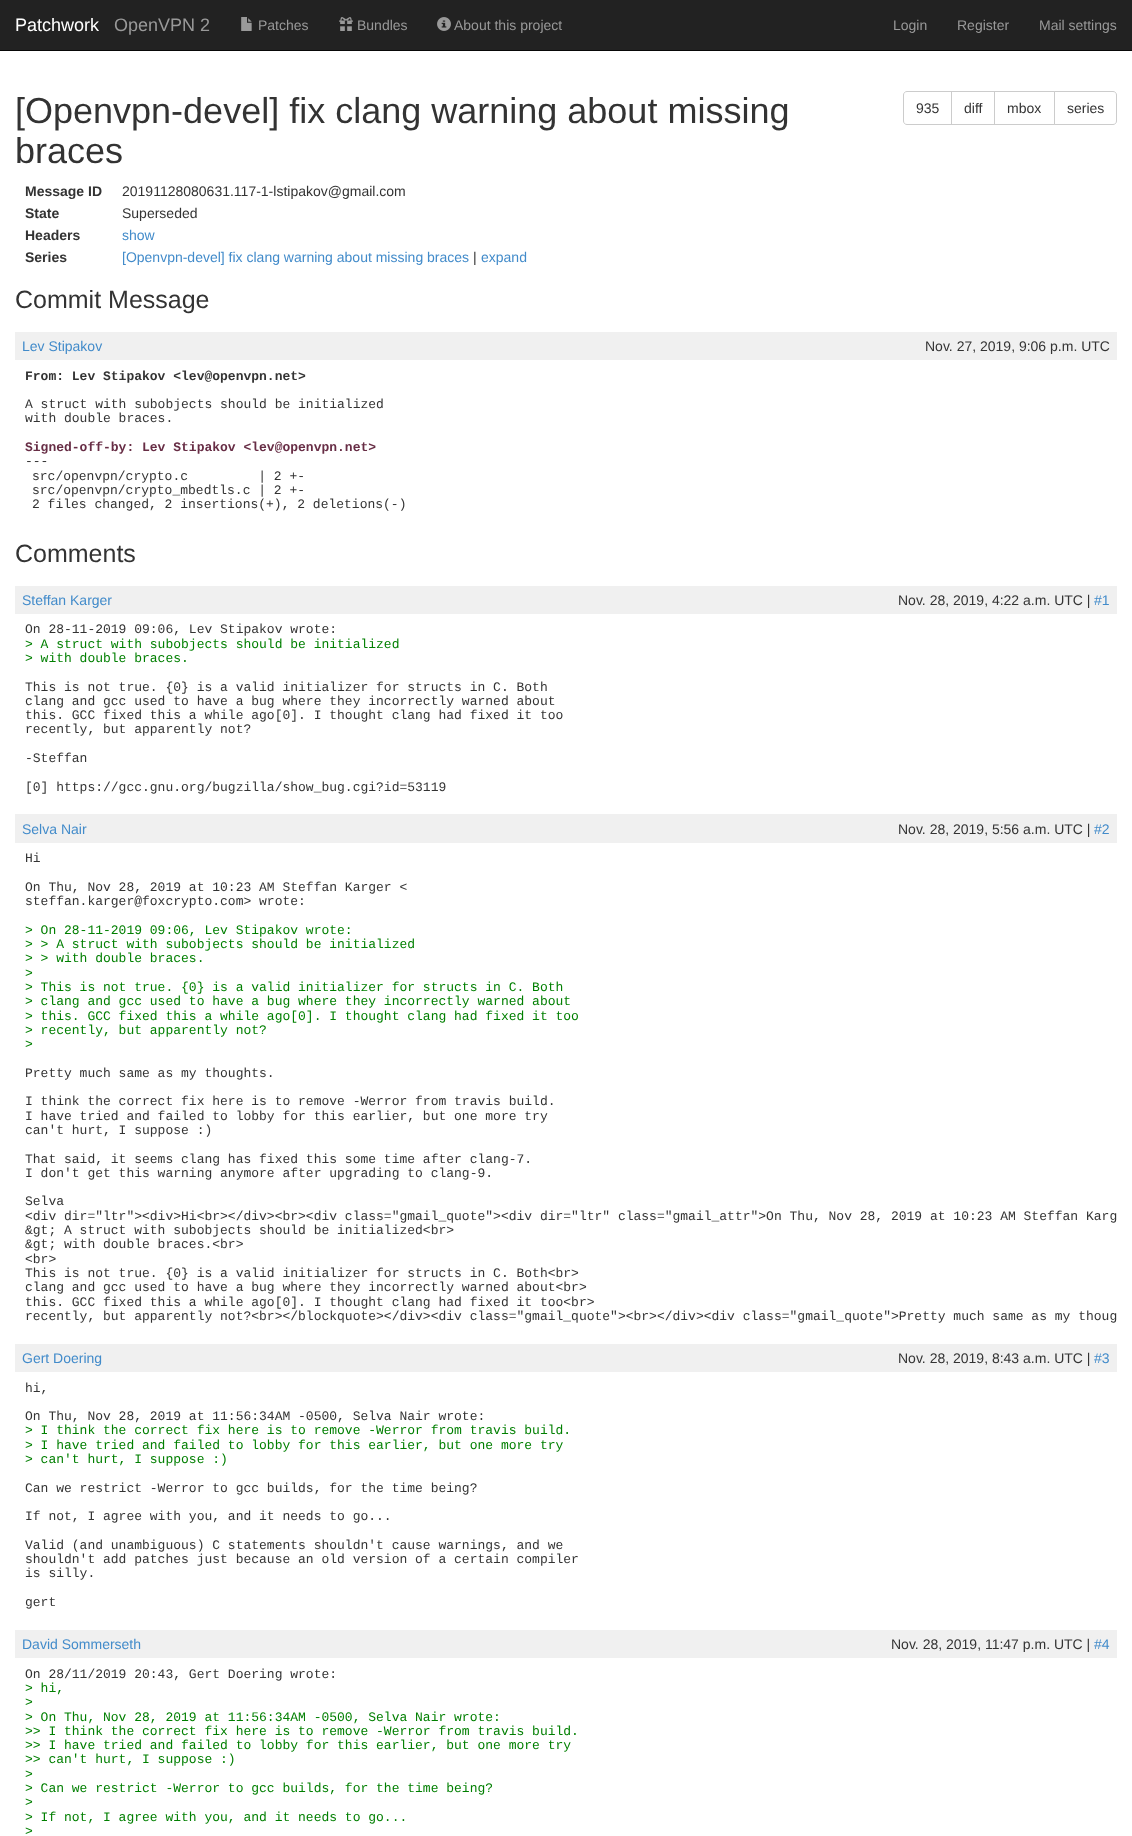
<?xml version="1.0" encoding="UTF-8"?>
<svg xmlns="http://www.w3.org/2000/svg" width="1132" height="1836">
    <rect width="100%" height="100%" fill="#FFFFFF"/>
    <rect x="0" y="0" width="1132" height="50" fill="#222222"/>
    <rect x="0" y="50" width="1132" height="1" fill="#080808"/>
    <text x="15" y="31" font-family="Liberation Sans" font-size="18" fill="#FFFFFF">Patchwork</text>
    <text x="114" y="31" font-family="Liberation Sans" font-size="18" fill="#999999">OpenVPN 2</text>
    <image x="241" y="17" width="11" height="14" href="img_01.png"/>
    <text x="258" y="30" font-family="Liberation Sans" font-size="14" fill="#999999">Patches</text>
    <image x="339" y="17" width="14" height="14" href="img_02.png"/>
    <text x="357" y="30" font-family="Liberation Sans" font-size="14" fill="#999999">Bundles</text>
    <image x="437" y="17" width="14" height="14" href="img_03.png"/>
    <text x="454" y="30" font-family="Liberation Sans" font-size="14" fill="#999999">About this project</text>
    <text x="893" y="30" font-family="Liberation Sans" font-size="14" fill="#999999">Login</text>
    <text x="957" y="30" font-family="Liberation Sans" font-size="14" fill="#999999">Register</text>
    <text x="1039" y="30" font-family="Liberation Sans" font-size="14" fill="#999999">Mail settings</text>
    <text font-family="Liberation Sans" font-size="36" fill="#333333">
        <tspan x="15" y="123">[Openvpn-devel] fix clang warning about missing</tspan>
        <tspan x="15" y="163">braces</tspan>
    </text>
    <path d="M 907 91.5 H 951.5 V 124.5 H 907 C 905 124.5 903.5 123 903.5 121 V 95 C 903.5 93 905 91.5 907 91.5 Z" fill="none" stroke="#CCCCCC"/>
    <text x="916" y="113" font-family="Liberation Sans" font-size="14" fill="#333333">935</text>
    <rect x="951.5" y="91.5" width="43" height="33" fill="none" stroke="#CCCCCC"/>
    <text x="964" y="113" font-family="Liberation Sans" font-size="14" fill="#333333">diff</text>
    <rect x="994.5" y="91.5" width="60" height="33" fill="none" stroke="#CCCCCC"/>
    <text x="1007" y="113" font-family="Liberation Sans" font-size="14" fill="#333333">mbox</text>
    <path d="M 1054.5 91.5 H 1113 C 1115 91.5 1116.5 93 1116.5 95 V 121 C 1116.5 123 1115 124.5 1113 124.5 H 1054.5 Z" fill="#FFFFFF" stroke="#CCCCCC"/>
    <text x="1067" y="113" font-family="Liberation Sans" font-size="14" fill="#333333">series</text>
    <text x="25" y="196" font-family="Liberation Sans" font-size="14" font-weight="700" fill="#333333">Message ID</text>
    <text x="122" y="196" font-family="Liberation Sans" font-size="14" fill="#333333">20191128080631.117-1-lstipakov@gmail.com</text>
    <text x="25" y="218" font-family="Liberation Sans" font-size="14" font-weight="700" fill="#333333">State</text>
    <text x="122" y="218" font-family="Liberation Sans" font-size="14" fill="#333333">Superseded</text>
    <text x="25" y="240" font-family="Liberation Sans" font-size="14" font-weight="700" fill="#333333">Headers</text>
    <text x="122" y="240" font-family="Liberation Sans" font-size="14" fill="#428BCA">show</text>
    <text x="25" y="262" font-family="Liberation Sans" font-size="14" font-weight="700" fill="#333333">Series</text>
    <text x="122" y="262" font-family="Liberation Sans" font-size="14" fill="#428BCA">[Openvpn-devel] fix clang warning about missing braces</text>
    <text x="473" y="262" font-family="Liberation Sans" font-size="14" fill="#333333">|</text>
    <text x="481" y="262" font-family="Liberation Sans" font-size="14" fill="#428BCA">expand</text>
    <text x="15" y="308" font-family="Liberation Sans" font-size="25" fill="#333333">Commit Message</text>
    <rect x="15" y="332" width="1102" height="28" fill="#F0F0F0"/>
    <text x="22" y="351" font-family="Liberation Sans" font-size="14" fill="#428BCA">Lev Stipakov</text>
    <text x="925" y="351" font-family="Liberation Sans" font-size="14" fill="#333333">Nov. 27, 2019, 9:06 p.m. UTC</text>
    <text x="25" y="380" font-family="Liberation Mono" font-size="13" font-weight="700" fill="#333333">From: Lev Stipakov &lt;lev@openvpn.net&gt;</text>
    <text font-family="Liberation Mono" font-size="13" fill="#333333">
        <tspan x="25" y="408">A struct with subobjects should be initialized</tspan>
        <tspan x="25" y="422">with double braces.</tspan>
    </text>
    <text x="25" y="451" font-family="Liberation Mono" font-size="13" font-weight="700" fill="#672D45">Signed-off-by: Lev Stipakov &lt;lev@openvpn.net&gt;</text>
    <text x="25" y="465" font-family="Liberation Mono" font-size="13" fill="#333333">---</text>
    <text font-family="Liberation Mono" font-size="13" fill="#333333" xml:space="preserve"><tspan x="32" y="480">src/openvpn/crypto.c         | 2 +-</tspan><tspan x="32" y="494">src/openvpn/crypto_mbedtls.c | 2 +-</tspan><tspan x="32" y="508">2 files changed, 2 insertions(+), 2 deletions(-)</tspan></text>
    <text x="15" y="562" font-family="Liberation Sans" font-size="25" fill="#333333">Comments</text>
    <rect x="15" y="586" width="1102" height="28" fill="#F0F0F0"/>
    <text x="22" y="605" font-family="Liberation Sans" font-size="14" fill="#428BCA">Steffan Karger</text>
    <text x="898" y="605" font-family="Liberation Sans" font-size="14" fill="#333333">Nov. 28, 2019, 4:22 a.m. UTC |</text>
    <text x="1094" y="605" font-family="Liberation Sans" font-size="14" fill="#428BCA">#1</text>
    <text x="25" y="633" font-family="Liberation Mono" font-size="13" fill="#333333">On 28-11-2019 09:06, Lev Stipakov wrote:</text>
    <text font-family="Liberation Mono" font-size="13" fill="#007F00">
        <tspan x="25" y="648">&gt; A struct with subobjects should be initialized</tspan>
        <tspan x="25" y="662">&gt; with double braces.</tspan>
    </text>
    <text font-family="Liberation Mono" font-size="13" fill="#333333">
        <tspan x="25" y="691">This is not true. {0} is a valid initializer for structs in C. Both</tspan>
        <tspan x="25" y="705">clang and gcc used to have a bug where they incorrectly warned about</tspan>
        <tspan x="25" y="719">this. GCC fixed this a while ago[0]. I thought clang had fixed it too</tspan>
        <tspan x="25" y="733">recently, but apparently not?</tspan>
    </text>
    <text x="25" y="762" font-family="Liberation Mono" font-size="13" fill="#333333">-Steffan</text>
    <text x="25" y="791" font-family="Liberation Mono" font-size="13" fill="#333333">[0] https://gcc.gnu.org/bugzilla/show_bug.cgi?id=53119</text>
    <rect x="15" y="814" width="1102" height="29" fill="#F0F0F0"/>
    <text x="22" y="834" font-family="Liberation Sans" font-size="14" fill="#428BCA">Selva Nair</text>
    <text x="898" y="834" font-family="Liberation Sans" font-size="14" fill="#333333">Nov. 28, 2019, 5:56 a.m. UTC |</text>
    <text x="1094" y="834" font-family="Liberation Sans" font-size="14" fill="#428BCA">#2</text>
    <text x="25" y="862" font-family="Liberation Mono" font-size="13" fill="#333333">Hi</text>
    <text font-family="Liberation Mono" font-size="13" fill="#333333">
        <tspan x="25" y="891">On Thu, Nov 28, 2019 at 10:23 AM Steffan Karger &lt;</tspan>
        <tspan x="25" y="905">steffan.karger@foxcrypto.com&gt; wrote:</tspan>
    </text>
    <text font-family="Liberation Mono" font-size="13" fill="#007F00">
        <tspan x="25" y="934">&gt; On 28-11-2019 09:06, Lev Stipakov wrote:</tspan>
        <tspan x="25" y="948">&gt; &gt; A struct with subobjects should be initialized</tspan>
        <tspan x="25" y="962">&gt; &gt; with double braces.</tspan>
        <tspan x="25" y="977">&gt;</tspan>
        <tspan x="25" y="991">&gt; This is not true. {0} is a valid initializer for structs in C. Both</tspan>
        <tspan x="25" y="1005">&gt; clang and gcc used to have a bug where they incorrectly warned about</tspan>
        <tspan x="25" y="1020">&gt; this. GCC fixed this a while ago[0]. I thought clang had fixed it too</tspan>
        <tspan x="25" y="1034">&gt; recently, but apparently not?</tspan>
        <tspan x="25" y="1048">&gt;</tspan>
    </text>
    <text x="25" y="1077" font-family="Liberation Mono" font-size="13" fill="#333333">Pretty much same as my thoughts.</text>
    <text font-family="Liberation Mono" font-size="13" fill="#333333">
        <tspan x="25" y="1105">I think the correct fix here is to remove -Werror from travis build.</tspan>
        <tspan x="25" y="1120">I have tried and failed to lobby for this earlier, but one more try</tspan>
        <tspan x="25" y="1134">can't hurt, I suppose :)</tspan>
    </text>
    <text font-family="Liberation Mono" font-size="13" fill="#333333">
        <tspan x="25" y="1163">That said, it seems clang has fixed this some time after clang-7.</tspan>
        <tspan x="25" y="1177">I don't get this warning anymore after upgrading to clang-9.</tspan>
    </text>
    <text font-family="Liberation Mono" font-size="13" fill="#333333">
        <tspan x="25" y="1205">Selva</tspan>
        <tspan x="25" y="1220">&lt;div dir="ltr"&gt;&lt;div&gt;Hi&lt;br&gt;&lt;/div&gt;&lt;br&gt;&lt;div class="gmail_quote"&gt;&lt;div dir="ltr" class="gmail_attr"&gt;On Thu, Nov 28, 2019 at 10:23 AM Steffan Karg</tspan>
        <tspan x="25" y="1234">&amp;gt; A struct with subobjects should be initialized&lt;br&gt;</tspan>
        <tspan x="25" y="1248">&amp;gt; with double braces.&lt;br&gt;</tspan>
        <tspan x="25" y="1263">&lt;br&gt;</tspan>
        <tspan x="25" y="1277">This is not true. {0} is a valid initializer for structs in C. Both&lt;br&gt;</tspan>
        <tspan x="25" y="1291">clang and gcc used to have a bug where they incorrectly warned about&lt;br&gt;</tspan>
        <tspan x="25" y="1306">this. GCC fixed this a while ago[0]. I thought clang had fixed it too&lt;br&gt;</tspan>
        <tspan x="25" y="1320">recently, but apparently not?&lt;br&gt;&lt;/blockquote&gt;&lt;/div&gt;&lt;div class="gmail_quote"&gt;&lt;br&gt;&lt;/div&gt;&lt;div class="gmail_quote"&gt;Pretty much same as my thoug</tspan>
    </text>
    <rect x="15" y="1344" width="1102" height="28" fill="#F0F0F0"/>
    <text x="22" y="1363" font-family="Liberation Sans" font-size="14" fill="#428BCA">Gert Doering</text>
    <text x="898" y="1363" font-family="Liberation Sans" font-size="14" fill="#333333">Nov. 28, 2019, 8:43 a.m. UTC |</text>
    <text x="1094" y="1363" font-family="Liberation Sans" font-size="14" fill="#428BCA">#3</text>
    <text x="25" y="1392" font-family="Liberation Mono" font-size="13" fill="#333333">hi,</text>
    <text x="25" y="1420" font-family="Liberation Mono" font-size="13" fill="#333333">On Thu, Nov 28, 2019 at 11:56:34AM -0500, Selva Nair wrote:</text>
    <text font-family="Liberation Mono" font-size="13" fill="#007F00">
        <tspan x="25" y="1434">&gt; I think the correct fix here is to remove -Werror from travis build.</tspan>
        <tspan x="25" y="1449">&gt; I have tried and failed to lobby for this earlier, but one more try</tspan>
        <tspan x="25" y="1463">&gt; can't hurt, I suppose :)</tspan>
    </text>
    <text x="25" y="1492" font-family="Liberation Mono" font-size="13" fill="#333333">Can we restrict -Werror to gcc builds, for the time being?</text>
    <text x="25" y="1520" font-family="Liberation Mono" font-size="13" fill="#333333">If not, I agree with you, and it needs to go...</text>
    <text font-family="Liberation Mono" font-size="13" fill="#333333">
        <tspan x="25" y="1549">Valid (and unambiguous) C statements shouldn't cause warnings, and we</tspan>
        <tspan x="25" y="1563">shouldn't add patches just because an old version of a certain compiler</tspan>
        <tspan x="25" y="1577">is silly.</tspan>
    </text>
    <text x="25" y="1606" font-family="Liberation Mono" font-size="13" fill="#333333">gert</text>
    <rect x="15" y="1630" width="1102" height="28" fill="#F0F0F0"/>
    <text x="22" y="1649" font-family="Liberation Sans" font-size="14" fill="#428BCA">David Sommerseth</text>
    <text x="891" y="1649" font-family="Liberation Sans" font-size="14" fill="#333333">Nov. 28, 2019, 11:47 p.m. UTC |</text>
    <text x="1094" y="1649" font-family="Liberation Sans" font-size="14" fill="#428BCA">#4</text>
    <text x="25" y="1678" font-family="Liberation Mono" font-size="13" fill="#333333">On 28/11/2019 20:43, Gert Doering wrote:</text>
    <text font-family="Liberation Mono" font-size="13" fill="#007F00">
        <tspan x="25" y="1692">&gt; hi,</tspan>
        <tspan x="25" y="1706">&gt;</tspan>
        <tspan x="25" y="1721">&gt; On Thu, Nov 28, 2019 at 11:56:34AM -0500, Selva Nair wrote:</tspan>
        <tspan x="25" y="1735">&gt;&gt; I think the correct fix here is to remove -Werror from travis build.</tspan>
        <tspan x="25" y="1749">&gt;&gt; I have tried and failed to lobby for this earlier, but one more try</tspan>
        <tspan x="25" y="1763">&gt;&gt; can't hurt, I suppose :)</tspan>
        <tspan x="25" y="1778">&gt;</tspan>
        <tspan x="25" y="1792">&gt; Can we restrict -Werror to gcc builds, for the time being?</tspan>
        <tspan x="25" y="1806">&gt;</tspan>
        <tspan x="25" y="1821">&gt; If not, I agree with you, and it needs to go...</tspan>
        <tspan x="25" y="1835">&gt;</tspan>
    </text>
</svg>
